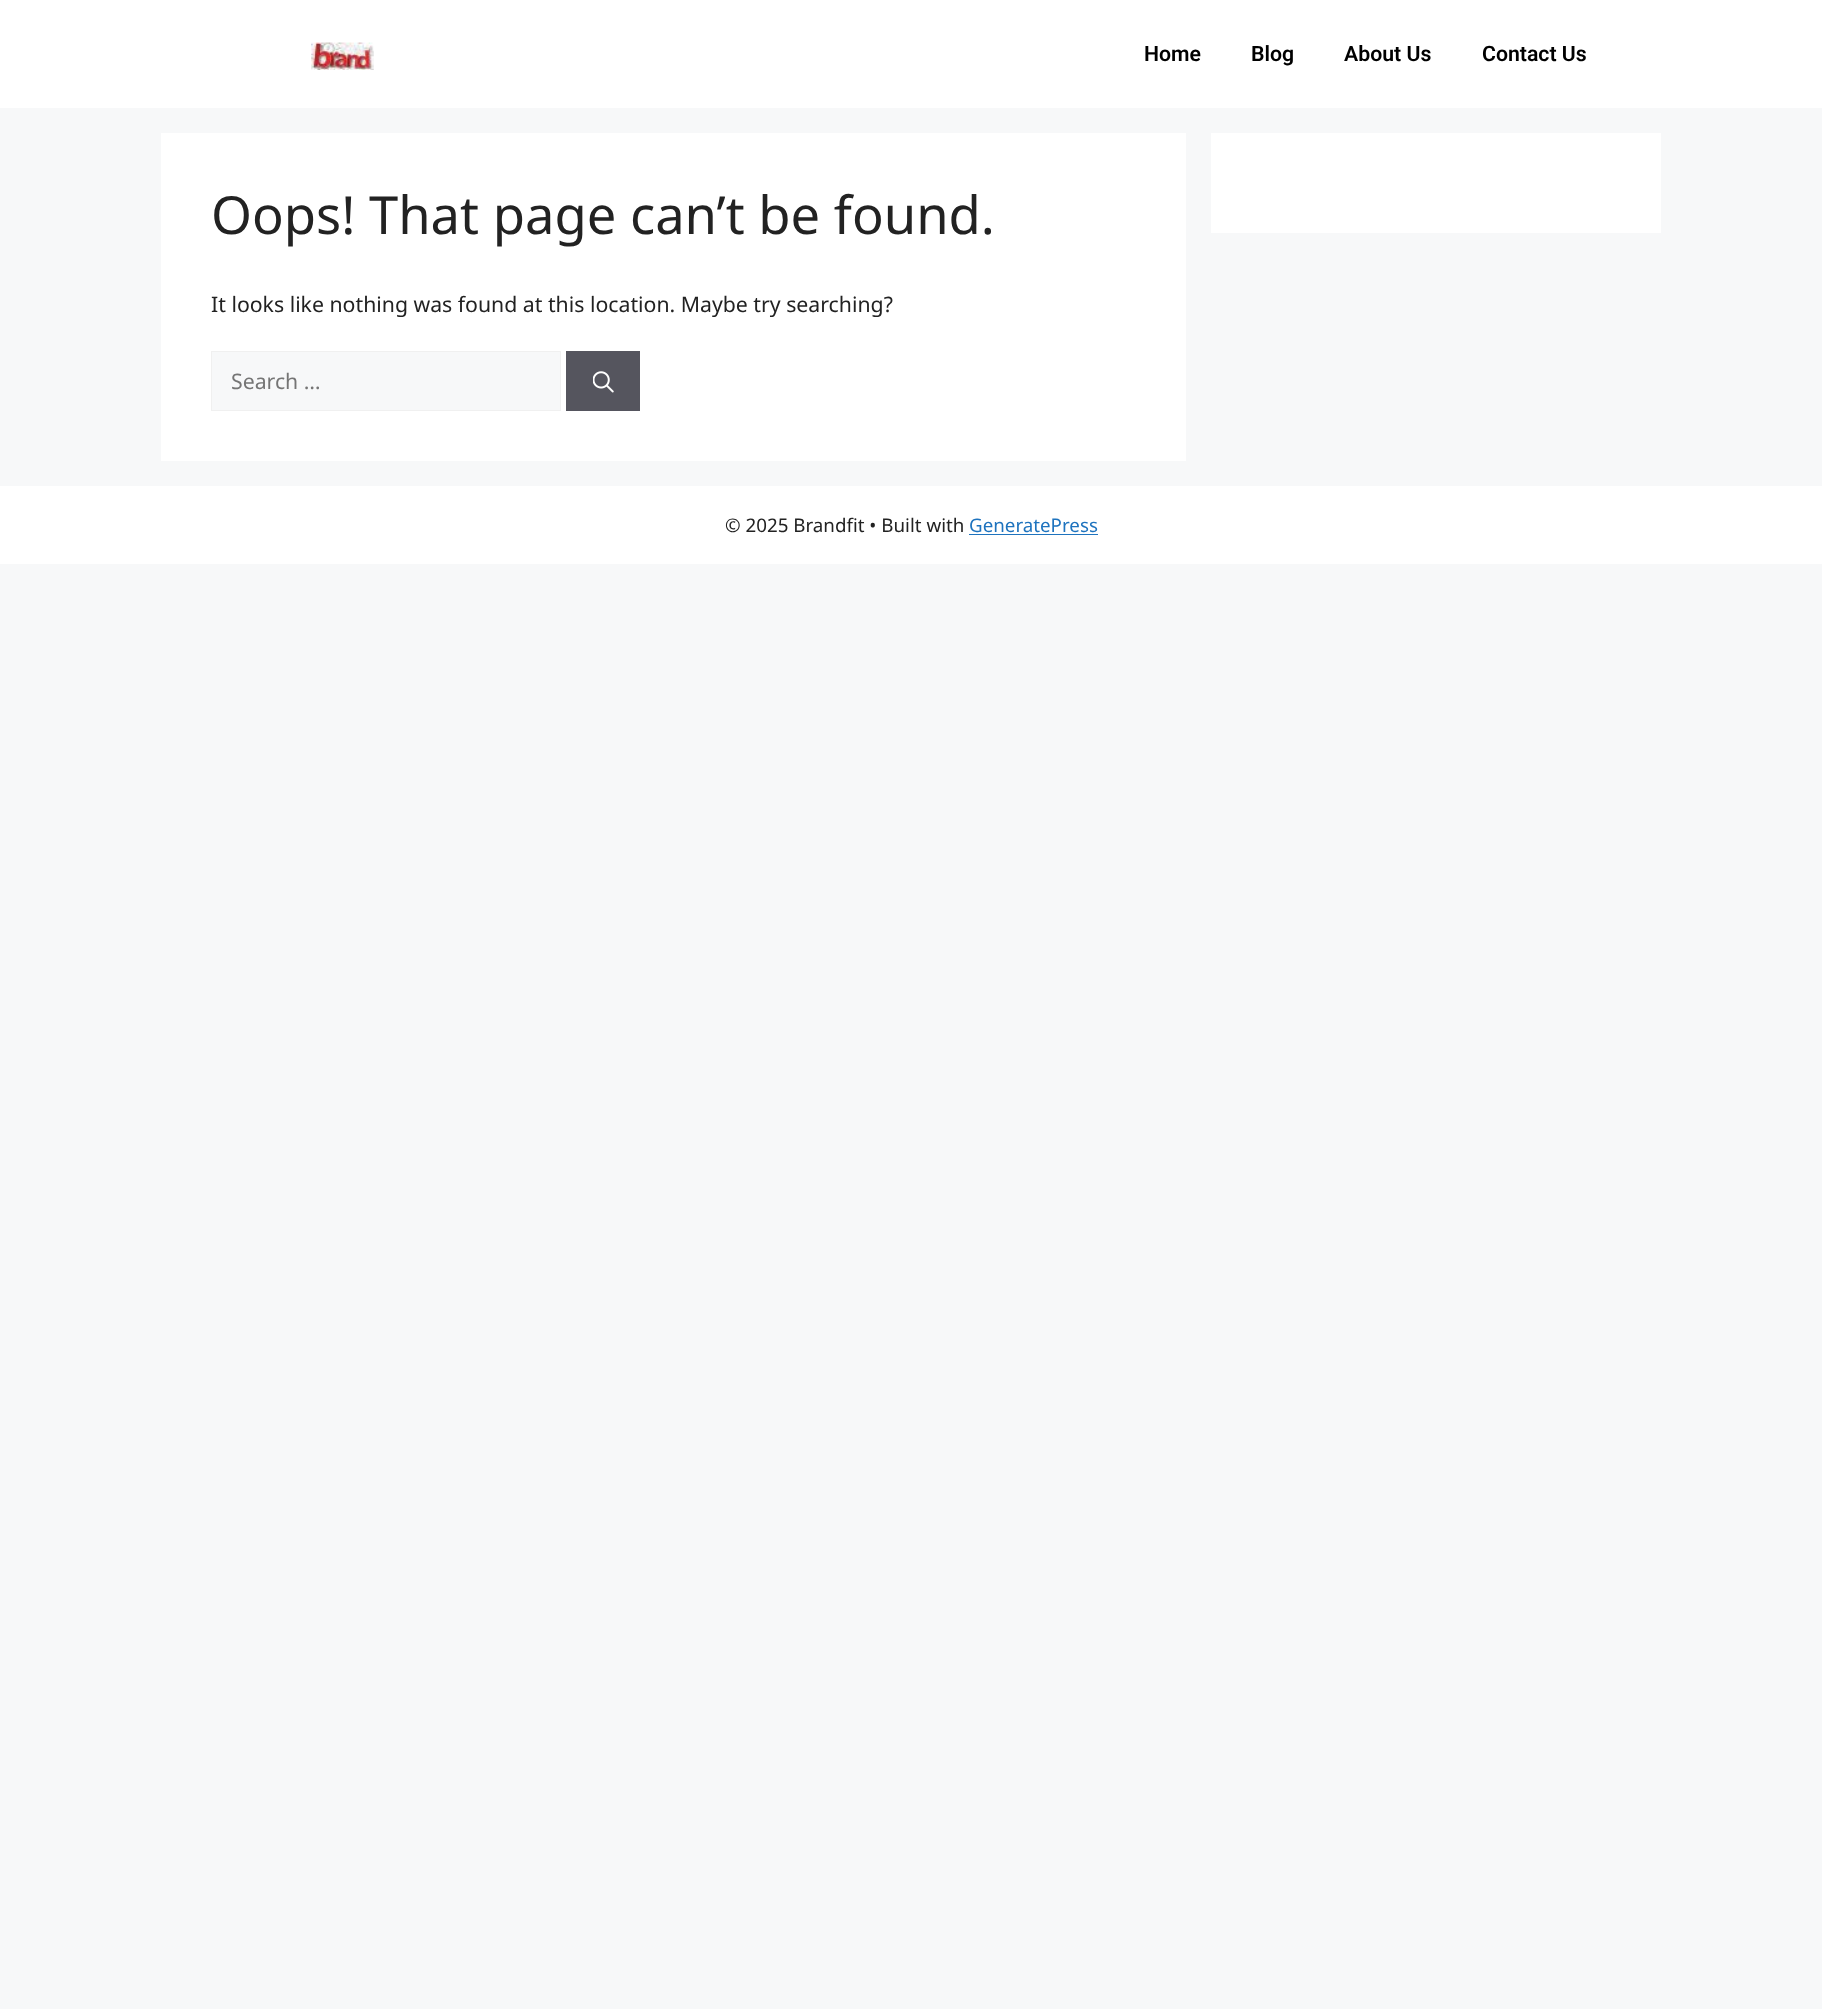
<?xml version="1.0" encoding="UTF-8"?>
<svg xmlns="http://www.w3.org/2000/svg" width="1822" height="2009">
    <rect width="100%" height="100%" fill="#F7F8F9"/>
    <rect x="0" y="0" width="1822" height="108" fill="#FFFFFF"/>
    <image x="311" y="42" width="63" height="28" href="img_01.png"/>
    <text x="1144" y="61" font-family="Roboto" font-size="21.25" font-weight="600" fill="#000000">Home</text>
    <text x="1251" y="61" font-family="Roboto" font-size="21.25" font-weight="600" fill="#000000">Blog</text>
    <text x="1344" y="61" font-family="Roboto" font-size="21.25" font-weight="600" fill="#000000">About Us</text>
    <text x="1482" y="61" font-family="Roboto" font-size="21.25" font-weight="600" fill="#000000">Contact Us</text>
    <rect x="1211" y="133" width="450" height="100" fill="#FFFFFF"/>
    <rect x="161" y="133" width="1025" height="328" fill="#FFFFFF"/>
    <text x="211" y="234" font-family="Noto Sans" font-size="52.5" fill="#222222">Oops! That page can’t be found.</text>
    <text x="211" y="312" font-family="Noto Sans" font-size="21.25" fill="#222222">It looks like nothing was found at this location. Maybe try searching?</text>
    <rect x="211.5" y="351.5" width="349" height="59" fill="#F7F8F9" stroke="#F0F0F0"/>
    <text x="231" y="389" font-family="Noto Sans" font-size="21.25" fill="#757575">Search …</text>
    <rect x="566" y="351" width="74" height="60" fill="#55555E"/>
    <image x="593" y="371" width="21" height="22" href="img_02.png"/>
    <rect x="0" y="486" width="1822" height="78" fill="#FFFFFF"/>
    <text x="725" y="532" font-family="Noto Sans" font-size="18.75" fill="#222222">© 2025 Brandfit • Built with</text>
    <text x="969" y="532" font-family="Noto Sans" font-size="18.75" fill="#1E73BE">GeneratePress</text>
    <rect x="969" y="534" width="129" height="1" fill="#1E73BE"/>
</svg>
